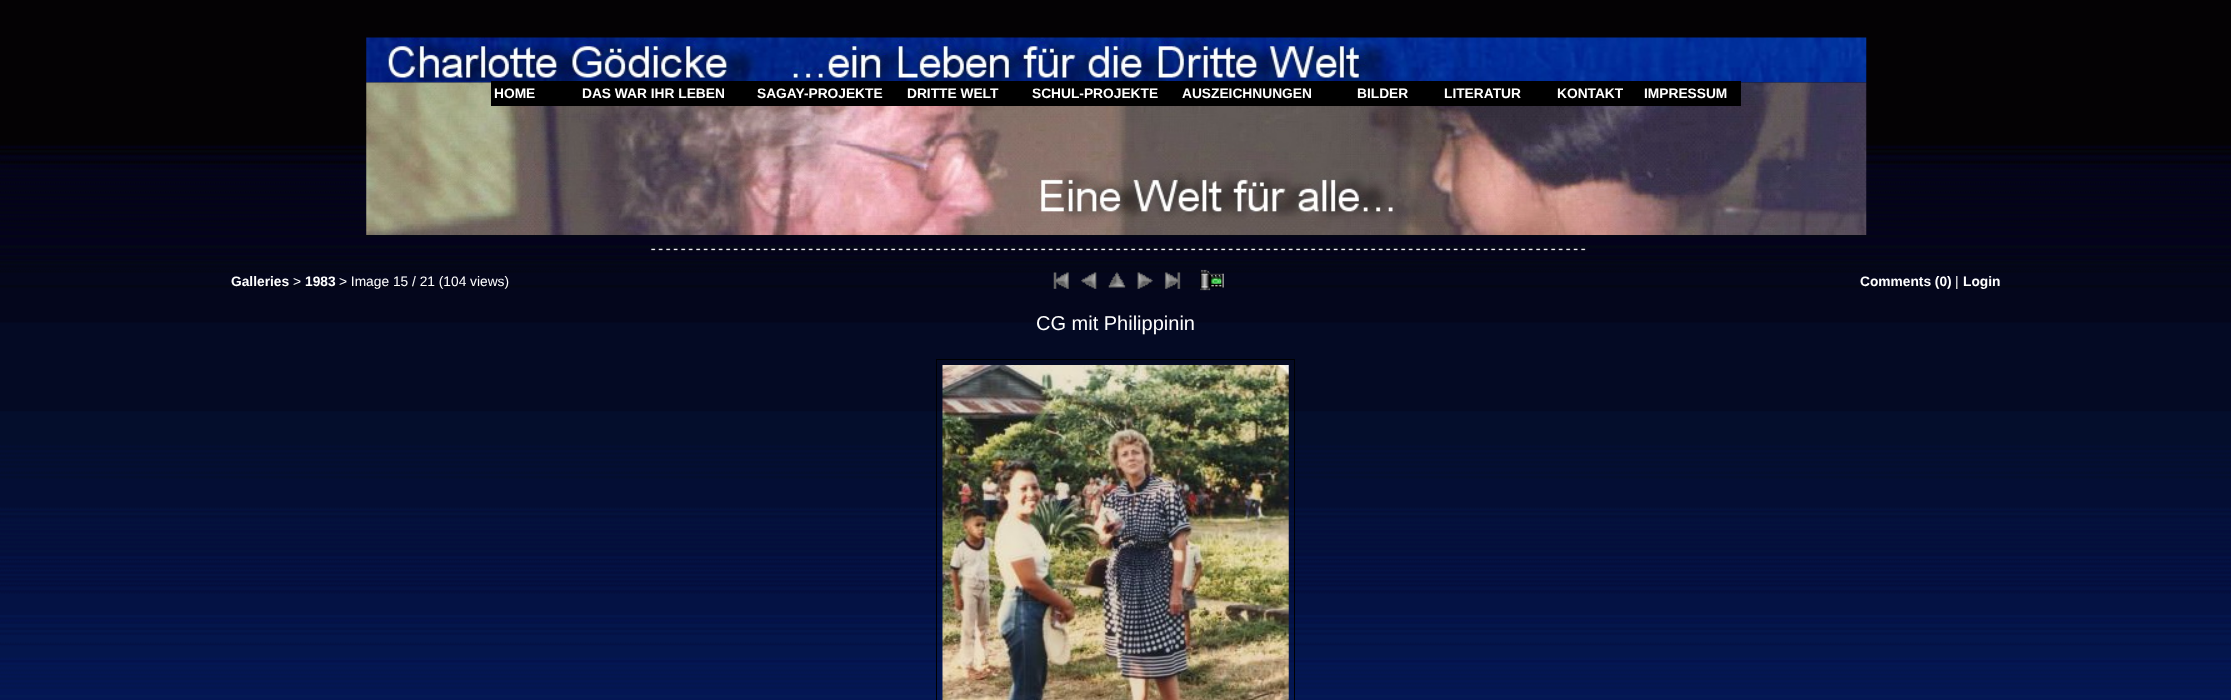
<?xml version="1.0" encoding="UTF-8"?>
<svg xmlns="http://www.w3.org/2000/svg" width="2231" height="700">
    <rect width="100%" height="100%" fill="#FFFFFF"/>
    <image x="0" y="0" width="2231" height="700" href="img_01.png"/>
    <image x="366" y="37" width="1501" height="46" href="img_02.png"/>
    <image x="366" y="82" width="1501" height="153" href="img_03.png"/>
    <rect x="491" y="81" width="1250" height="25" fill="#000000"/>
    <text x="494" y="98" font-family="Liberation Sans" font-size="13.75" font-weight="700" fill="#FFFFFF">HOME</text>
    <text x="582" y="98" font-family="Liberation Sans" font-size="13.75" font-weight="700" fill="#FFFFFF">DAS WAR IHR LEBEN</text>
    <text x="757" y="98" font-family="Liberation Sans" font-size="13.75" font-weight="700" fill="#FFFFFF">SAGAY-PROJEKTE</text>
    <text x="907" y="98" font-family="Liberation Sans" font-size="13.75" font-weight="700" fill="#FFFFFF">DRITTE WELT</text>
    <text x="1032" y="98" font-family="Liberation Sans" font-size="13.75" font-weight="700" fill="#FFFFFF">SCHUL-PROJEKTE</text>
    <text x="1182" y="98" font-family="Liberation Sans" font-size="13.75" font-weight="700" fill="#FFFFFF">AUSZEICHNUNGEN</text>
    <text x="1357" y="98" font-family="Liberation Sans" font-size="13.75" font-weight="700" fill="#FFFFFF">BILDER</text>
    <text x="1444" y="98" font-family="Liberation Sans" font-size="13.75" font-weight="700" fill="#FFFFFF">LITERATUR</text>
    <text x="1557" y="98" font-family="Liberation Sans" font-size="13.75" font-weight="700" fill="#FFFFFF">KONTAKT</text>
    <text x="1644" y="98" font-family="Liberation Sans" font-size="13.75" font-weight="700" fill="#FFFFFF">IMPRESSUM</text>
    <image x="651" y="248" width="935" height="3" href="img_04.png"/>
    <text x="231" y="286" font-family="Liberation Sans" font-size="13.75" font-weight="700" fill="#FFFFFF">Galleries</text>
    <text x="293" y="286" font-family="Liberation Sans" font-size="13.75" fill="#FFFFFF">&gt;</text>
    <text x="305" y="286" font-family="Liberation Sans" font-size="13.75" font-weight="700" fill="#FFFFFF">1983</text>
    <text x="339" y="286" font-family="Liberation Sans" font-size="13.75" fill="#FFFFFF">&gt; Image 15 / 21 (104 views)</text>
    <image x="1053" y="272" width="16" height="17" href="img_05.png"/>
    <image x="1081" y="272" width="16" height="17" href="img_06.png"/>
    <image x="1108" y="272" width="18" height="16" href="img_07.png"/>
    <image x="1137" y="272" width="16" height="17" href="img_08.png"/>
    <image x="1164" y="272" width="17" height="17" href="img_09.png"/>
    <image x="1200" y="269" width="24" height="22" href="img_10.png"/>
    <text x="1860" y="286" font-family="Liberation Sans" font-size="13.75" font-weight="700" fill="#FFFFFF">Comments (0)</text>
    <text x="1955" y="286" font-family="Liberation Sans" font-size="13.75" fill="#FFFFFF">|</text>
    <text x="1963" y="286" font-family="Liberation Sans" font-size="13.75" font-weight="700" fill="#FFFFFF">Login</text>
    <text x="1036" y="330" font-family="Liberation Sans" font-size="20" fill="#FFFFFF">CG mit Philippinin</text>
    <rect x="936.5" y="359.5" width="358" height="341" fill="none" stroke="#000000"/>
    <image x="942" y="365" width="347" height="335" href="img_11.png"/>
</svg>
